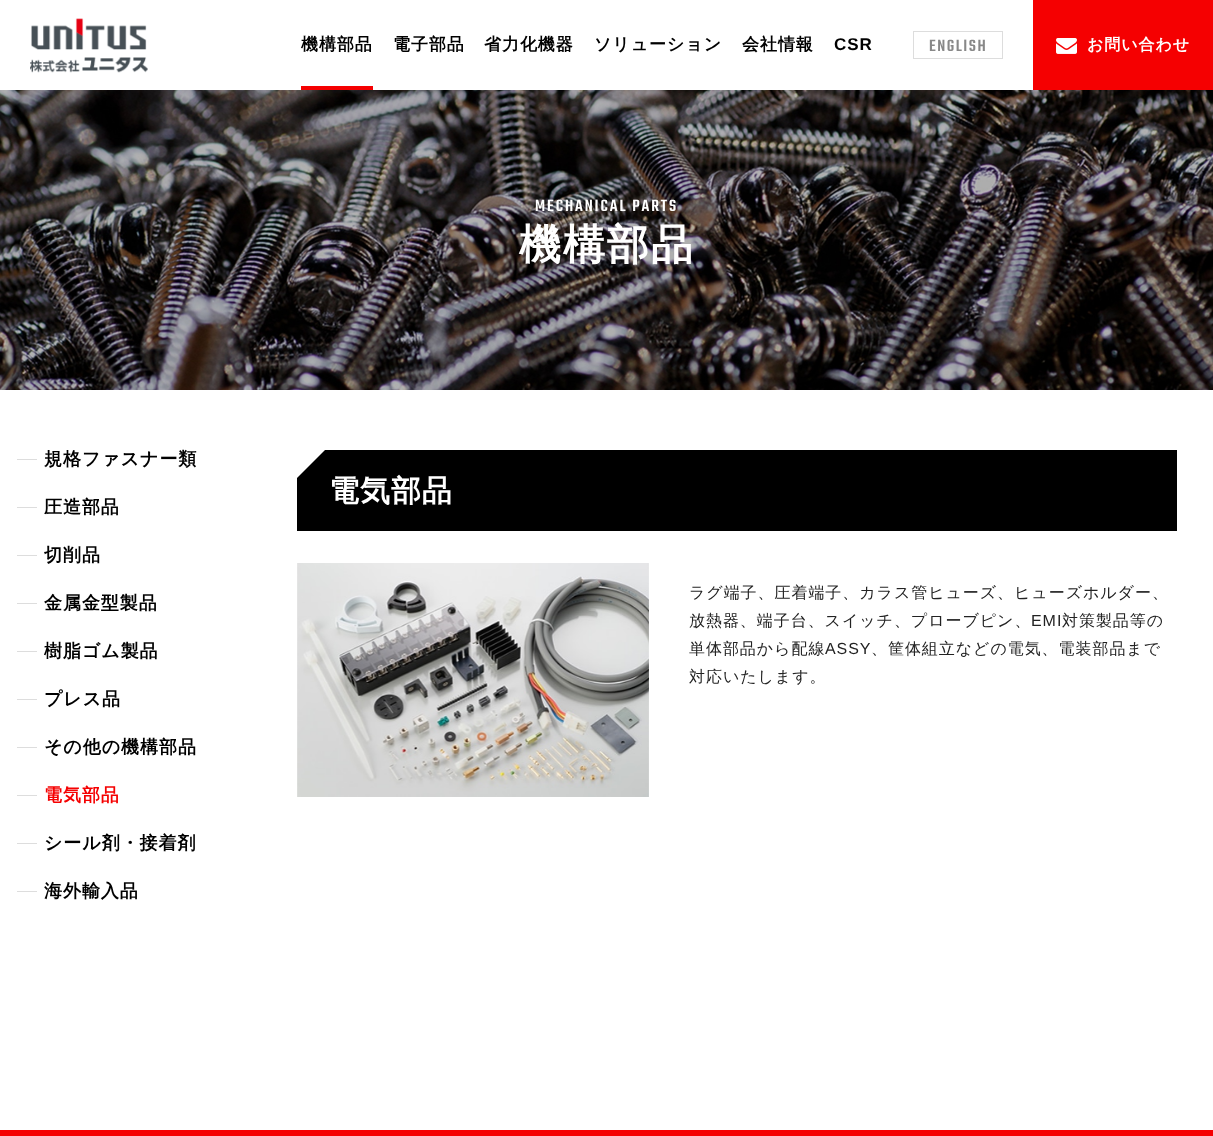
<?xml version="1.0" encoding="UTF-8"?>
<svg xmlns="http://www.w3.org/2000/svg" width="1213" height="1136">
    <rect width="100%" height="100%" fill="#FFFFFF"/>
    <image x="30" y="18" width="118" height="55" href="img_01.png"/>
    <text x="301" y="50" font-family="WenQuanYi Zen Hei" font-size="17" font-weight="700" letter-spacing="0.95" fill="#000000">機構部品</text>
    <rect x="301" y="86" width="72" height="4" fill="#F50001"/>
    <text x="393" y="50" font-family="WenQuanYi Zen Hei" font-size="17" font-weight="700" letter-spacing="0.95" fill="#000000">電子部品</text>
    <text x="484" y="50" font-family="WenQuanYi Zen Hei" font-size="17" font-weight="700" letter-spacing="0.95" fill="#000000">省力化機器</text>
    <text x="594" y="50" font-family="WenQuanYi Zen Hei" font-size="17" font-weight="700" letter-spacing="0.95" fill="#000000">ソリューション</text>
    <text x="742" y="50" font-family="WenQuanYi Zen Hei" font-size="17" font-weight="700" letter-spacing="0.95" fill="#000000">会社情報</text>
    <text x="834" y="50" font-family="Liberation Sans" font-size="17" font-weight="700" letter-spacing="0.95" fill="#000000">CSR</text>
    <rect x="913.5" y="31.5" width="89" height="27" fill="none" stroke="#DDDDDD"/>
    <text x="929" y="51" font-family="Teko" font-size="18" font-weight="500" letter-spacing="1.5" fill="#888888">ENGLISH</text>
    <rect x="1033" y="0" width="180" height="90" fill="#F50001"/>
    <image x="1056" y="38" width="21" height="16" href="img_02.png"/>
    <text x="1087" y="50" font-family="WenQuanYi Zen Hei" font-size="16" font-weight="700" letter-spacing="0.95" fill="#FFFFFF">お問い合わせ</text>
    <image x="0" y="90" width="1213" height="300" href="img_03.png"/>
    <text x="535" y="211" font-family="Teko" font-size="18" font-weight="500" letter-spacing="1.9" fill="#FFFFFF">MECHANICAL PARTS</text>
    <text x="519" y="259" font-family="WenQuanYi Zen Hei" font-size="42" font-weight="700" letter-spacing="1.9" fill="#FFFFFF">機構部品</text>
    <rect x="17" y="459" width="20" height="1" fill="#DDDDDD"/>
    <text x="44" y="465" font-family="WenQuanYi Zen Hei" font-size="18" font-weight="700" letter-spacing="0.95" fill="#000000">規格ファスナー類</text>
    <rect x="17" y="507" width="20" height="1" fill="#DDDDDD"/>
    <text x="44" y="513" font-family="WenQuanYi Zen Hei" font-size="18" font-weight="700" letter-spacing="0.95" fill="#000000">圧造部品</text>
    <rect x="17" y="555" width="20" height="1" fill="#DDDDDD"/>
    <text x="44" y="561" font-family="WenQuanYi Zen Hei" font-size="18" font-weight="700" letter-spacing="0.95" fill="#000000">切削品</text>
    <rect x="17" y="603" width="20" height="1" fill="#DDDDDD"/>
    <text x="44" y="609" font-family="WenQuanYi Zen Hei" font-size="18" font-weight="700" letter-spacing="0.95" fill="#000000">金属金型製品</text>
    <rect x="17" y="651" width="20" height="1" fill="#DDDDDD"/>
    <text x="44" y="657" font-family="WenQuanYi Zen Hei" font-size="18" font-weight="700" letter-spacing="0.95" fill="#000000">樹脂ゴム製品</text>
    <rect x="17" y="699" width="20" height="1" fill="#DDDDDD"/>
    <text x="44" y="705" font-family="WenQuanYi Zen Hei" font-size="18" font-weight="700" letter-spacing="0.95" fill="#000000">プレス品</text>
    <rect x="17" y="747" width="20" height="1" fill="#DDDDDD"/>
    <text x="44" y="753" font-family="WenQuanYi Zen Hei" font-size="18" font-weight="700" letter-spacing="0.95" fill="#000000">その他の機構部品</text>
    <rect x="17" y="795" width="20" height="1" fill="#DDDDDD"/>
    <text x="44" y="801" font-family="WenQuanYi Zen Hei" font-size="18" font-weight="700" letter-spacing="0.95" fill="#F50001">電気部品</text>
    <rect x="17" y="843" width="20" height="1" fill="#DDDDDD"/>
    <text x="44" y="849" font-family="WenQuanYi Zen Hei" font-size="18" font-weight="700" letter-spacing="0.95" fill="#000000">シール剤・接着剤</text>
    <rect x="17" y="891" width="20" height="1" fill="#DDDDDD"/>
    <text x="44" y="897" font-family="WenQuanYi Zen Hei" font-size="18" font-weight="700" letter-spacing="0.95" fill="#000000">海外輸入品</text>
    <rect x="297" y="450" width="880" height="81" fill="#000000"/>
    <path d="M 297 450 H 325 L 297 478 Z" fill="#FFFFFF"/>
    <text x="329" y="501" font-family="WenQuanYi Zen Hei" font-size="30" font-weight="700" letter-spacing="0.95" fill="#FFFFFF">電気部品</text>
    <image x="297" y="563" width="352" height="234" href="img_04.png"/>
    <text font-family="WenQuanYi Zen Hei" font-size="16" font-weight="500" letter-spacing="0.95" fill="#222222">
        <tspan x="689" y="598">ラグ端子、圧着端子、カラス管ヒューズ、ヒューズホルダー、</tspan>
        <tspan x="689" y="626">放熱器、端子台、スイッチ、プローブピン、</tspan>
    </text>
    <text x="1031" y="626" font-family="Liberation Sans" font-size="16" letter-spacing="0.95" fill="#222222">EMI</text>
    <text x="1062" y="626" font-family="WenQuanYi Zen Hei" font-size="16" font-weight="500" letter-spacing="0.95" fill="#222222">対策製品等の</text>
    <text x="689" y="654" font-family="WenQuanYi Zen Hei" font-size="16" font-weight="500" letter-spacing="0.95" fill="#222222">単体部品から配線</text>
    <text x="825" y="654" font-family="Liberation Sans" font-size="16" letter-spacing="0.95" fill="#222222">ASSY</text>
    <text x="871" y="654" font-family="WenQuanYi Zen Hei" font-size="16" font-weight="500" letter-spacing="0.95" fill="#222222">、筐体組立などの電気、電装部品まで</text>
    <text x="689" y="682" font-family="WenQuanYi Zen Hei" font-size="16" font-weight="500" letter-spacing="0.95" fill="#222222">対応いたします。</text>
    <rect x="0" y="1130" width="1213" height="6" fill="#F50001"/>
</svg>
